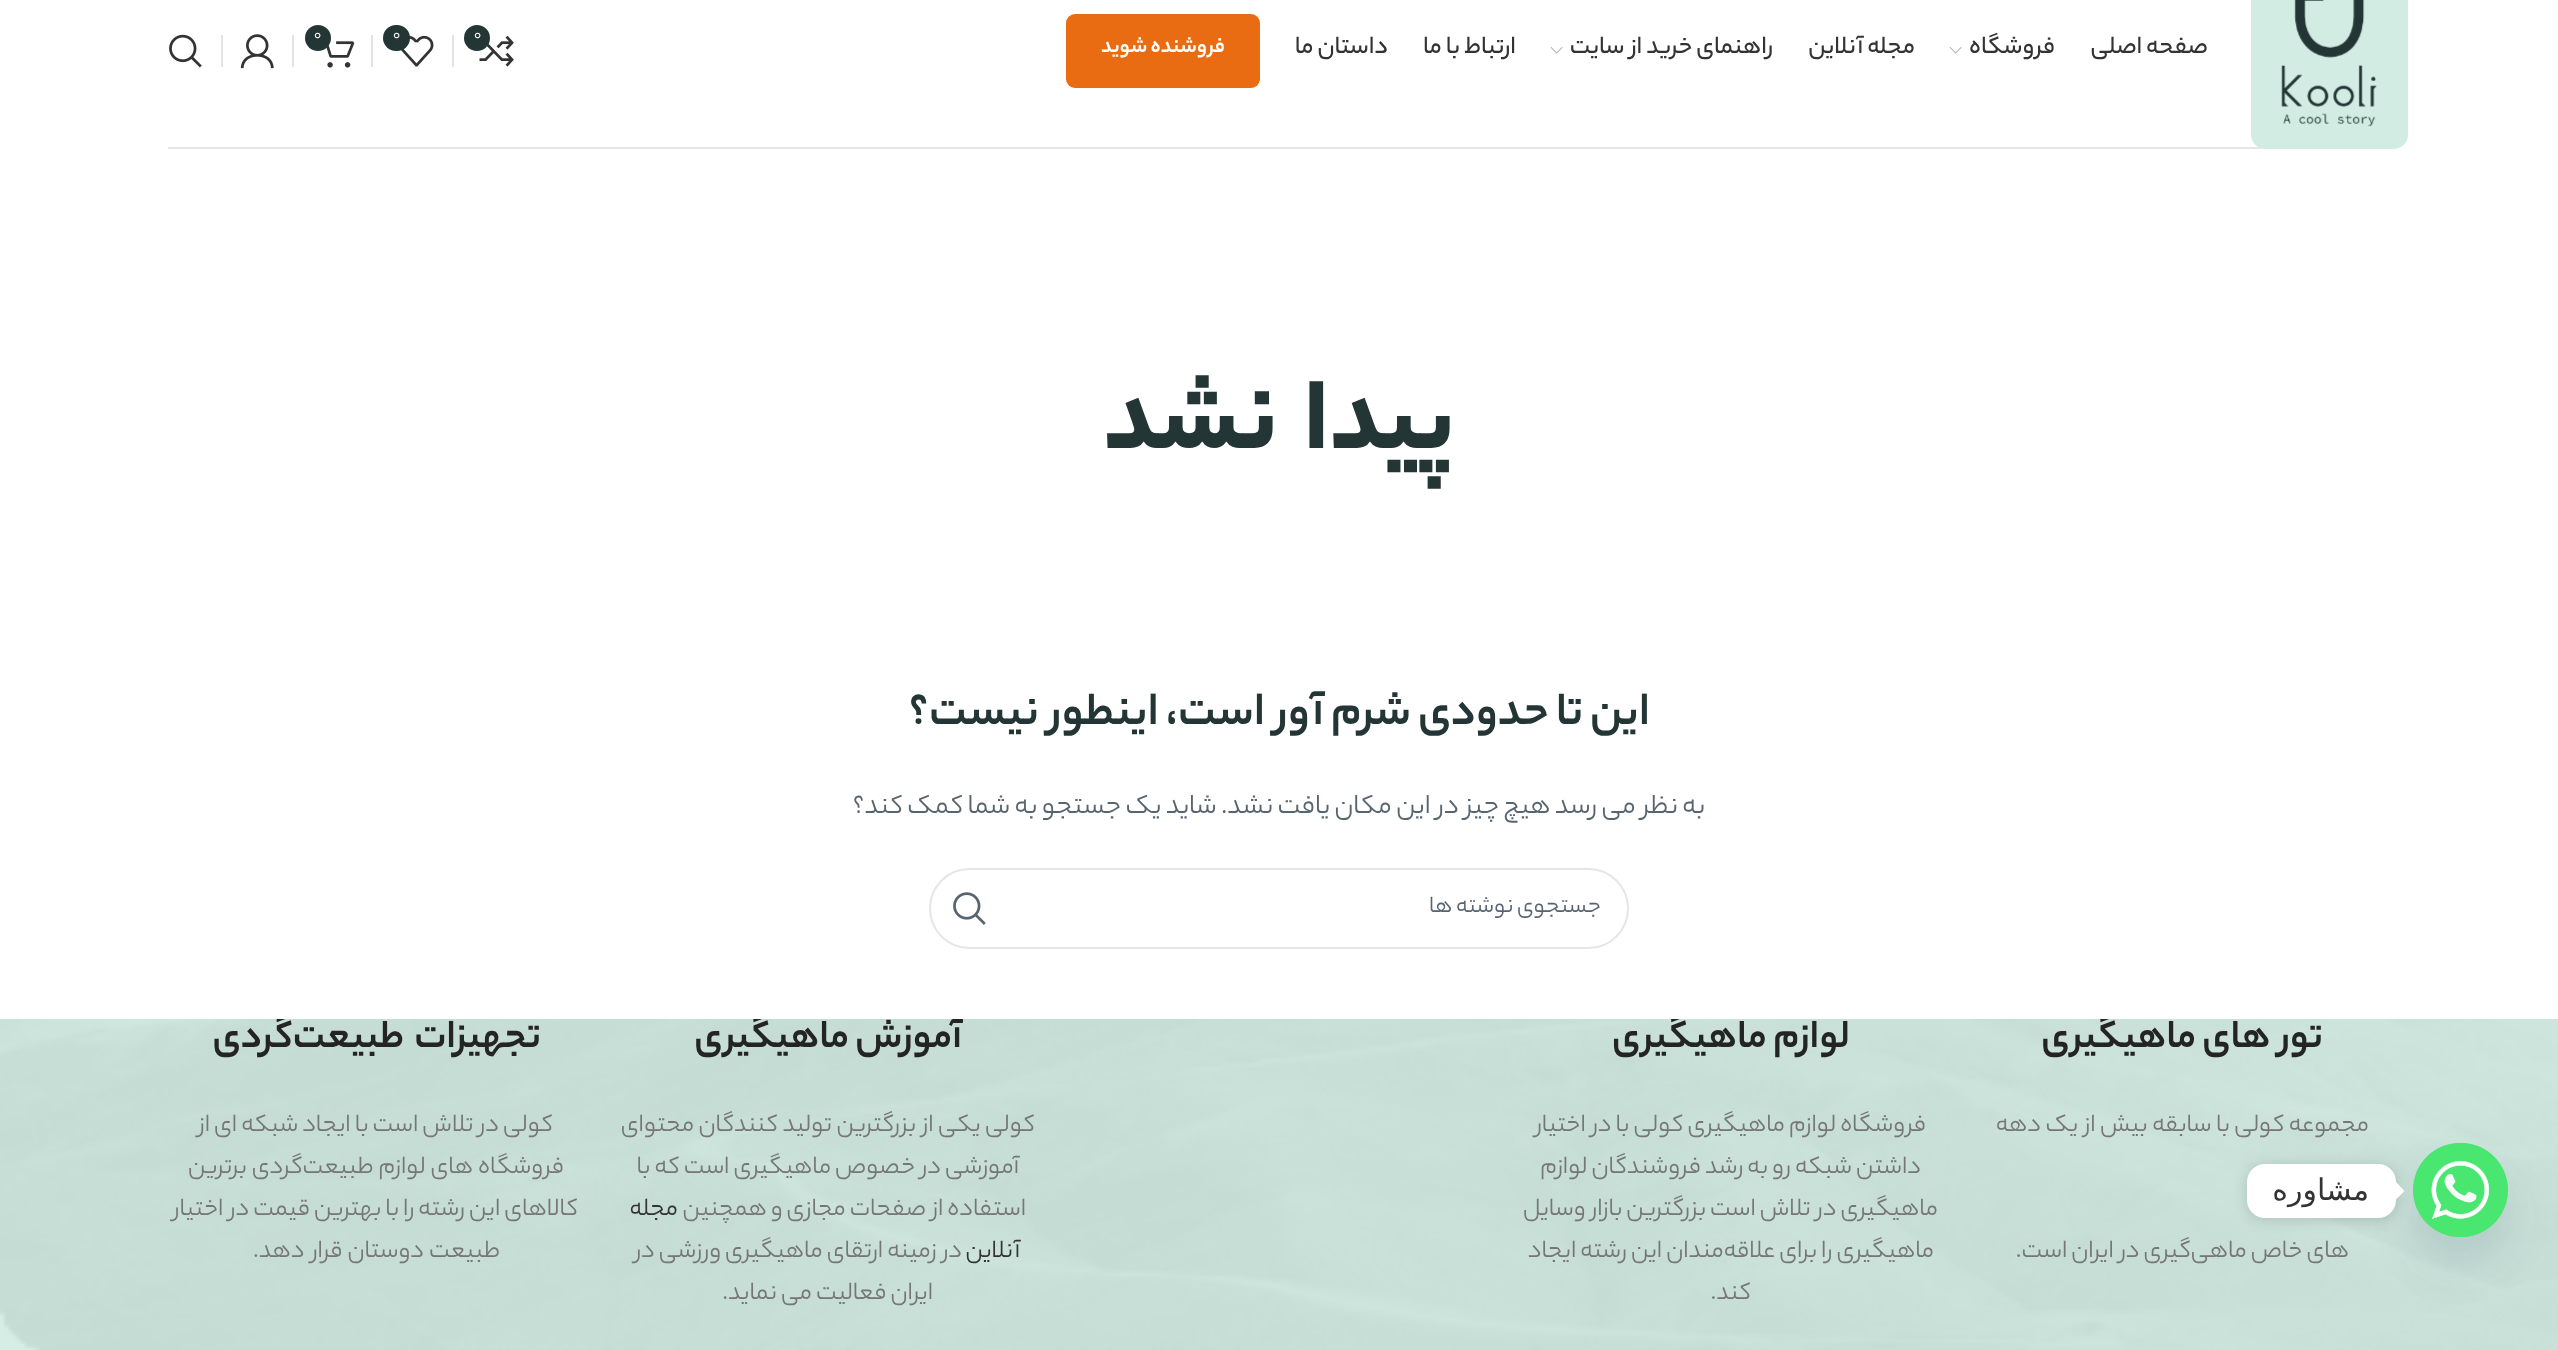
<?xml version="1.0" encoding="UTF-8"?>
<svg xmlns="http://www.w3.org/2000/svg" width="2558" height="1350">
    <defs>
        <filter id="blur1" x="-50%" y="-200%" width="200%" height="500%"><feGaussianBlur stdDeviation="21"/></filter>
        <filter id="blur2" x="-50%" y="-200%" width="200%" height="500%"><feGaussianBlur stdDeviation="7"/></filter>
    </defs>
    <rect width="100%" height="100%" fill="#FFFFFF"/>
    <rect x="0" y="1311" width="40" height="39" fill="#D6EEE6"/>
    <rect x="168" y="147" width="2097" height="2" fill="#E6E6E6"/>
    <path d="M 2251 -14 H 2408 V 135 C 2408 142.5 2401.5 149 2394 149 H 2265 C 2257.5 149 2251 142.5 2251 135 Z" fill="#D2ECE3"/>
    <image x="2281" y="0" width="96" height="127" href="img_01.png"/>
    <text x="2208" y="53" font-family="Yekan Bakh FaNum" font-size="26.25" font-weight="500" direction="rtl" fill="#333333">صفحه اصلی</text>
    <text x="2055" y="53" font-family="Yekan Bakh FaNum" font-size="26.25" font-weight="500" direction="rtl" fill="#333333">فروشگاه</text>
    <image x="1949" y="47" width="13" height="7" href="img_02.png"/>
    <text x="1915" y="53" font-family="Yekan Bakh FaNum" font-size="26.25" font-weight="500" direction="rtl" fill="#333333">مجله آنلاین</text>
    <text x="1773" y="53" font-family="Yekan Bakh FaNum" font-size="26.25" font-weight="500" direction="rtl" fill="#333333">راهنمای خرید از سایت</text>
    <image x="1550" y="47" width="13" height="7" href="img_02.png"/>
    <text x="1516" y="53" font-family="Yekan Bakh FaNum" font-size="26.25" font-weight="500" direction="rtl" fill="#333333">ارتباط با ما</text>
    <text x="1388" y="53" font-family="Yekan Bakh FaNum" font-size="26.25" font-weight="500" direction="rtl" fill="#333333">داستان ما</text>
    <rect x="1066" y="14" width="194" height="74" rx="9" fill="#EA6C12"/>
    <text x="1225" y="52" font-family="Yekan Bakh FaNum" font-size="22.75" font-weight="700" direction="rtl" fill="#FFFFFF">فروشنده شوید</text>
    <image x="479" y="35" width="35" height="32" href="img_03.png"/>
    <circle cx="477" cy="38" r="13" fill="#233635"/>
    <text x="474" y="39" font-family="Yekan Bakh FaNum" font-size="16" fill="#FFFFFF">0</text>
    <rect x="452" y="35" width="2" height="32" fill="#E4E4E4"/>
    <image x="401" y="35" width="33" height="32" href="img_04.png"/>
    <rect x="383" y="25" width="27" height="26" rx="13" fill="#233635"/>
    <text x="393" y="39" font-family="Yekan Bakh FaNum" font-size="16" fill="#FFFFFF">0</text>
    <rect x="371" y="35" width="2" height="32" fill="#E4E4E4"/>
    <image x="326" y="41" width="29" height="27" href="img_05.png"/>
    <circle cx="318" cy="38" r="13" fill="#233635"/>
    <text x="314" y="39" font-family="Yekan Bakh FaNum" font-size="16" fill="#FFFFFF">0</text>
    <rect x="292" y="35" width="2" height="32" fill="#E4E4E4"/>
    <image x="240" y="34" width="34" height="35" href="img_06.png"/>
    <rect x="221" y="35" width="2" height="32" fill="#E4E4E4"/>
    <image x="169" y="34" width="33" height="34" href="img_07.png"/>
    <image x="0" y="1019" width="2558" height="331" href="img_09.png"/>
    <text x="2323" y="1047" font-family="Yekan Bakh FaNum" font-size="42" font-weight="700" direction="rtl" fill="#242424">تور های ماهیگیری</text>
    <text x="1850" y="1047" font-family="Yekan Bakh FaNum" font-size="42" font-weight="700" direction="rtl" fill="#242424">لوازم ماهیگیری</text>
    <text x="962" y="1047" font-family="Yekan Bakh FaNum" font-size="42" font-weight="700" direction="rtl" fill="#242424">آموزش ماهیگیری</text>
    <text x="541" y="1047" word-spacing="4" font-family="Yekan Bakh FaNum" font-size="42" font-weight="700" direction="rtl" fill="#242424">تجهیزات طبیعت‌گردی</text>
    <rect x="276" y="1014" width="1838" height="5" fill="#FFFFFF"/>
    <text x="1455" y="448" word-spacing="11" font-family="Yekan Bakh FaNum" font-size="107.5" font-weight="900" direction="rtl" fill="#233635">پیدا نشد</text>
    <text x="1650" y="724" font-family="Yekan Bakh FaNum" font-size="49" font-weight="700" direction="rtl" fill="#233635">این تا حدودی شرم آور است، اینطور نیست؟</text>
    <text x="1705" y="813" font-family="Yekan Bakh FaNum" font-size="28.9" direction="rtl" fill="#586571">به نظر می رسد هیچ چیز در این مکان یافت نشد. شاید یک جستجو به شما کمک کند؟</text>
    <rect x="930" y="869" width="698" height="79" rx="39.5" fill="none" stroke="#E6E6E6" stroke-width="2"/>
    <text x="1601" y="912" font-family="Yekan Bakh FaNum" font-size="24.5" direction="rtl" fill="#586571">جستجوی نوشته ها</text>
    <image x="953" y="892" width="33" height="33" href="img_08.png"/>
    <text x="2369" y="1131" word-spacing="0.5" font-family="Yekan Bakh FaNum" font-size="26.25" direction="rtl" fill="#767676">مجموعه کولی با سابقه بیش از یک دهه</text>
    <text x="2349" y="1257" font-family="Yekan Bakh FaNum" font-size="26.25" direction="rtl" fill="#767676">های خاص ماهی‌گیری در ایران است.</text>
    <text x="1926" y="1131" font-family="Yekan Bakh FaNum" font-size="26.25" direction="rtl" fill="#767676">فروشگاه لوازم ماهیگیری کولی با در اختیار</text>
    <text x="1921" y="1173" font-family="Yekan Bakh FaNum" font-size="26.25" direction="rtl" fill="#767676">داشتن شبکه رو به رشد فروشندگان لوازم</text>
    <text x="1938" y="1215" font-family="Yekan Bakh FaNum" font-size="26.25" direction="rtl" fill="#767676">ماهیگیری در تلاش است بزرگترین بازار وسایل</text>
    <text x="1934" y="1257" font-family="Yekan Bakh FaNum" font-size="26.25" direction="rtl" fill="#767676">ماهیگیری را برای علاقه‌مندان این رشته ایجاد</text>
    <text x="1751" y="1299" font-family="Yekan Bakh FaNum" font-size="26.25" direction="rtl" fill="#767676">کند.</text>
    <text x="1035" y="1131" word-spacing="0.5" font-family="Yekan Bakh FaNum" font-size="26.25" direction="rtl" fill="#767676">کولی یکی از بزرگترین تولید کنندگان محتوای</text>
    <text x="1019" y="1173" font-family="Yekan Bakh FaNum" font-size="26.25" direction="rtl" fill="#767676">آموزشی در خصوص ماهیگیری است که با</text>
    <text x="1026" y="1215" font-family="Yekan Bakh FaNum" font-size="26.25" direction="rtl" fill="#767676">استفاده از صفحات مجازی و همچنین</text>
    <text x="678" y="1215" font-family="Yekan Bakh FaNum" font-size="26.25" direction="rtl" fill="#333333">مجله</text>
    <text x="1020" y="1257" font-family="Yekan Bakh FaNum" font-size="26.25" direction="rtl" fill="#333333">آنلاین</text>
    <text x="962" y="1257" font-family="Yekan Bakh FaNum" font-size="26.25" direction="rtl" fill="#767676">در زمینه ارتقای ماهیگیری ورزشی در</text>
    <text x="933" y="1299" font-family="Yekan Bakh FaNum" font-size="26.25" direction="rtl" fill="#767676">ایران فعالیت می نماید.</text>
    <text x="553" y="1131" font-family="Yekan Bakh FaNum" font-size="26.25" direction="rtl" fill="#767676">کولی در تلاش است با ایجاد شبکه ای از</text>
    <text x="564" y="1173" word-spacing="1" font-family="Yekan Bakh FaNum" font-size="26.25" direction="rtl" fill="#767676">فروشگاه های لوازم طبیعت‌گردی برترین</text>
    <text x="578" y="1215" font-family="Yekan Bakh FaNum" font-size="26.25" direction="rtl" fill="#767676">کالاهای این رشته را با بهترین قیمت در اختیار</text>
    <text x="500" y="1257" word-spacing="1" font-family="Yekan Bakh FaNum" font-size="26.25" direction="rtl" fill="#767676">طبیعت دوستان قرار دهد.</text>
    <rect x="2413" y="1171" width="95" height="94" rx="47" fill="#49687E" fill-opacity="0.16" filter="url(#blur1)"/>
    <rect x="2413" y="1143" width="95" height="94" rx="47" fill="#49E670"/>
    <image x="2413" y="1143" width="95" height="94" href="img_10.png"/>
    <rect x="2247" y="1166" width="149" height="54" rx="18" fill="#000000" fill-opacity="0.15" filter="url(#blur2)"/>
    <rect x="2247" y="1164" width="149" height="54" rx="18" fill="#FFFFFF"/>
    <path d="M 2396 1199.5 V 1182 L 2404.5 1191 Z" fill="#FFFFFF"/>
    <text x="2369" y="1200" font-family="DejaVu Sans" font-size="30" direction="rtl" fill="#333333">مشاوره</text>
</svg>
